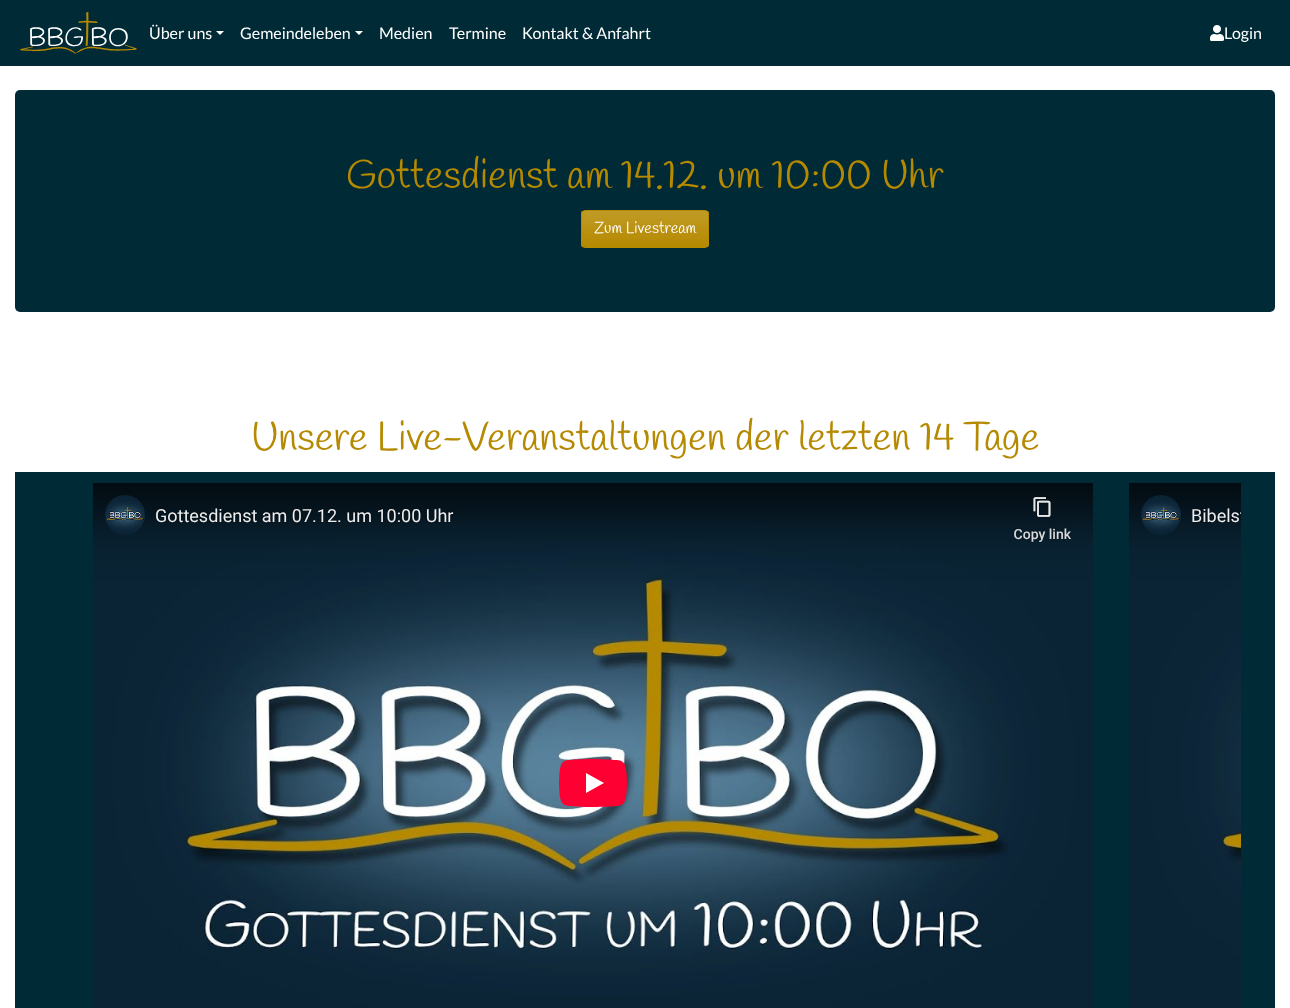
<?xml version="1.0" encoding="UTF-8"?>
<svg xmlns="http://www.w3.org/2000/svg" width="1290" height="1008">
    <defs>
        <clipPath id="clip1"><rect x="581" y="210" width="128" height="38" rx="4"/></clipPath>
        <linearGradient id="g1" gradientUnits="userSpaceOnUse" x1="645" y1="211" x2="645" y2="247"><stop offset="0" stop-color="#C09B26"/><stop offset="1" stop-color="#B58900"/></linearGradient>
    </defs>
    <rect width="100%" height="100%" fill="#FFFFFF"/>
    <rect x="0" y="0" width="1290" height="66" fill="#002B36"/>
    <image x="20" y="12" width="117" height="42" href="img_01.png"/>
    <text x="149" y="39" font-family="Lato" font-size="16" fill="#FFFFFF">Über uns</text>
    <path d="M 216 31 H 224 L 220 35 Z" fill="#FFFFFF"/>
    <text x="240" y="39" font-family="Lato" font-size="16" fill="#FFFFFF">Gemeindeleben</text>
    <path d="M 355 31 H 363 L 359 35 Z" fill="#FFFFFF"/>
    <text x="379" y="39" font-family="Lato" font-size="16" fill="#FFFFFF">Medien</text>
    <text x="449" y="39" font-family="Lato" font-size="16" fill="#FFFFFF">Termine</text>
    <text x="522" y="39" font-family="Lato" font-size="16" fill="#FFFFFF">Kontakt &amp; Anfahrt</text>
    <image x="1210" y="25" width="14" height="16" href="img_02.png"/>
    <text x="1224" y="39" font-family="Lato" font-size="16" fill="#FFFFFF">Login</text>
    <rect x="15" y="90" width="1260" height="222" rx="5" fill="#002B36"/>
    <text x="346" y="188" font-family="Handlee" font-size="40" fill="#B58900">Gottesdienst am 14.12. um 10:00 Uhr</text>
    <g clip-path="url(#clip1)">
        <rect x="581" y="211" width="128" height="36" fill="url(#g1)"/>
    </g>
    <rect x="581.5" y="210.5" width="127" height="37" rx="3.5" fill="none" stroke="#B58900"/>
    <text x="594" y="233" font-family="Handlee" font-size="16" fill="#FFFFFF">Zum Livestream</text>
    <text x="251" y="450" font-family="Handlee" font-size="40" fill="#B58900">Unsere Live-Veranstaltungen der letzten 14 Tage</text>
    <rect x="15" y="472" width="1260" height="536" fill="#002B36"/>
    <image x="93" y="483" width="1000" height="525" href="img_03.png"/>
    <image x="1129" y="483" width="112" height="525" href="img_04.png"/>
</svg>
